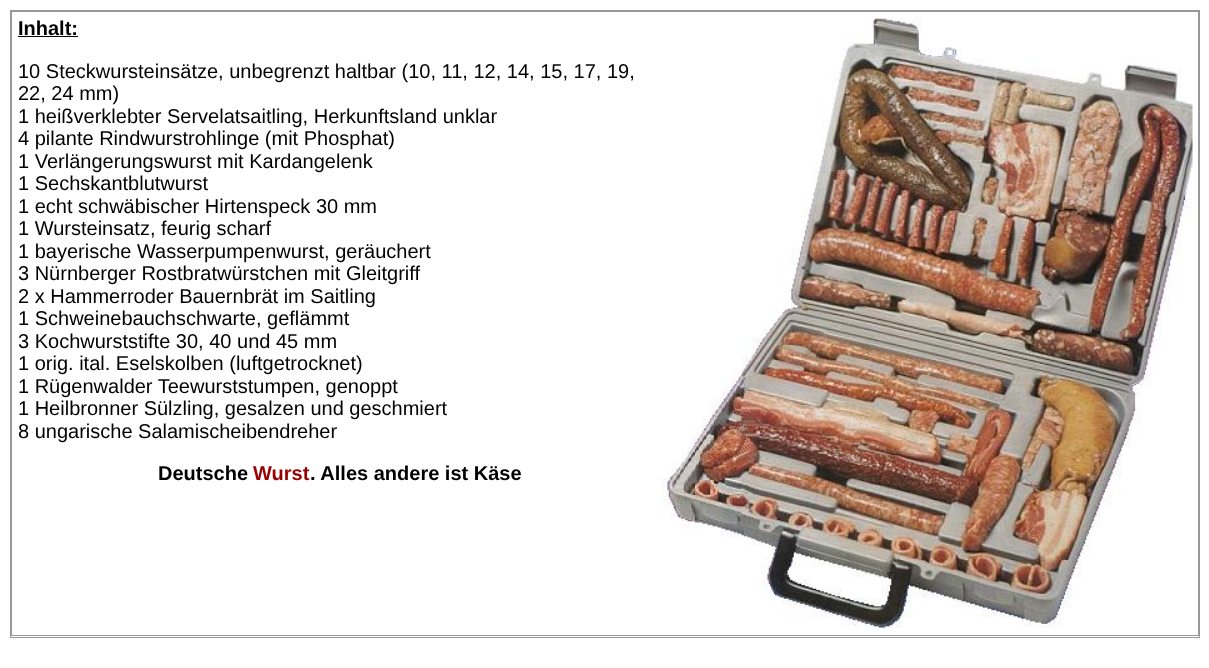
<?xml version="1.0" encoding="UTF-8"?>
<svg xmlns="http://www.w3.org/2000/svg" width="1209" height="668">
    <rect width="100%" height="100%" fill="#FFFFFF"/>
    <rect x="10.5" y="10.5" width="1189" height="627" fill="none" stroke="#999999"/>
    <rect x="11.5" y="11.5" width="1187" height="624" fill="none" stroke="#999999"/>
    <text x="18" y="35" font-family="Liberation Sans" font-size="20" font-weight="700" fill="#000000">Inhalt:</text>
    <rect x="18" y="36" width="60" height="1" fill="#000000"/>
    <text font-family="Liberation Sans" font-size="20" fill="#000000">
        <tspan x="18" y="78">10 Steckwursteinsätze, unbegrenzt haltbar (10, 11, 12, 14, 15, 17, 19,</tspan>
        <tspan x="18" y="100">22, 24 mm)</tspan>
        <tspan x="18" y="123">1 heißverklebter Servelatsaitling, Herkunftsland unklar</tspan>
        <tspan x="18" y="145">4 pilante Rindwurstrohlinge (mit Phosphat)</tspan>
        <tspan x="18" y="168">1 Verlängerungswurst mit Kardangelenk</tspan>
        <tspan x="18" y="190">1 Sechskantblutwurst</tspan>
        <tspan x="18" y="213">1 echt schwäbischer Hirtenspeck 30 mm</tspan>
        <tspan x="18" y="235">1 Wursteinsatz, feurig scharf</tspan>
        <tspan x="18" y="258">1 bayerische Wasserpumpenwurst, geräuchert</tspan>
        <tspan x="18" y="280">3 Nürnberger Rostbratwürstchen mit Gleitgriff</tspan>
        <tspan x="18" y="303">2 x Hammerroder Bauernbrät im Saitling</tspan>
        <tspan x="18" y="325">1 Schweinebauchschwarte, geflämmt</tspan>
        <tspan x="18" y="348">3 Kochwurststifte 30, 40 und 45 mm</tspan>
        <tspan x="18" y="370">1 orig. ital. Eselskolben (luftgetrocknet)</tspan>
        <tspan x="18" y="393">1 Rügenwalder Teewurststumpen, genoppt</tspan>
        <tspan x="18" y="415">1 Heilbronner Sülzling, gesalzen und geschmiert</tspan>
        <tspan x="18" y="438">8 ungarische Salamischeibendreher</tspan>
    </text>
    <text x="158" y="480" font-family="Liberation Sans" font-size="20" font-weight="700" fill="#000000">Deutsche</text>
    <text x="253" y="480" font-family="Liberation Sans" font-size="20" font-weight="700" fill="#990000">Wurst</text>
    <text x="310" y="480" font-family="Liberation Sans" font-size="20" font-weight="700" fill="#000000">. Alles andere ist Käse</text>
    <image x="661" y="17" width="532" height="613" href="img_01.png"/>
</svg>
